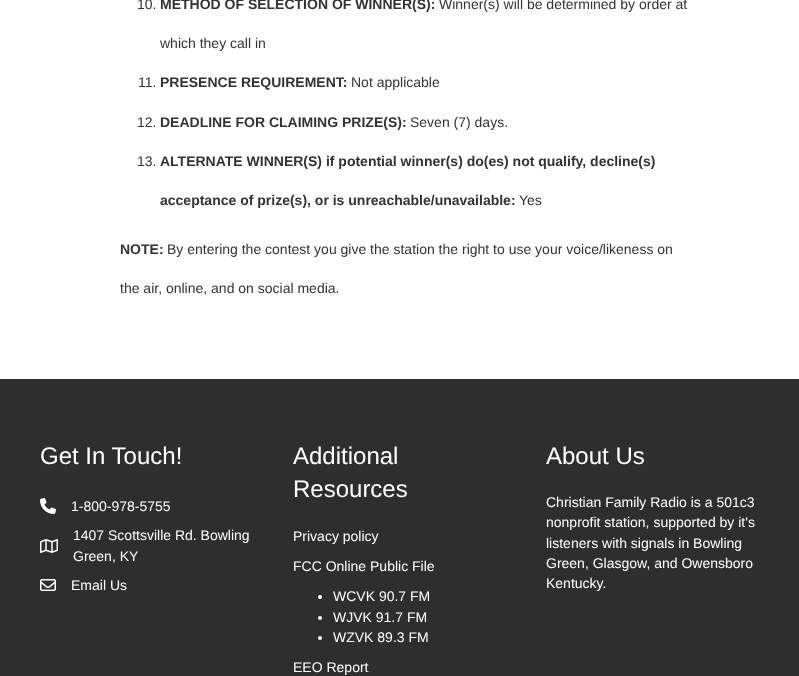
<?xml version="1.0" encoding="UTF-8"?>
<svg xmlns="http://www.w3.org/2000/svg" width="799" height="676">
    <rect width="100%" height="100%" fill="#FFFFFF"/>
    <text x="137" y="9" font-family="Liberation Sans" font-size="14" fill="#333333">10.</text>
    <text x="160" y="9" font-family="Liberation Sans" font-size="14" font-weight="700" fill="#333333">METHOD OF SELECTION OF WINNER(S):</text>
    <text x="439" y="9" font-family="Liberation Sans" font-size="14" fill="#333333">Winner(s) will be determined by order at</text>
    <text x="160" y="48" font-family="Liberation Sans" font-size="14" fill="#333333">which they call in</text>
    <text x="138" y="87" font-family="Liberation Sans" font-size="14" fill="#333333">11.</text>
    <text x="160" y="87" font-family="Liberation Sans" font-size="14" font-weight="700" fill="#333333">PRESENCE REQUIREMENT:</text>
    <text x="351" y="87" font-family="Liberation Sans" font-size="14" fill="#333333">Not applicable</text>
    <text x="137" y="127" font-family="Liberation Sans" font-size="14" fill="#333333">12.</text>
    <text x="160" y="127" font-family="Liberation Sans" font-size="14" font-weight="700" fill="#333333">DEADLINE FOR CLAIMING PRIZE(S):</text>
    <text x="410" y="127" font-family="Liberation Sans" font-size="14" fill="#333333">Seven (7) days.</text>
    <text x="137" y="166" font-family="Liberation Sans" font-size="14" fill="#333333">13.</text>
    <text x="160" y="166" font-family="Liberation Sans" font-size="14" font-weight="700" fill="#333333">ALTERNATE WINNER(S) if potential winner(s) do(es) not qualify, decline(s)</text>
    <text x="160" y="205" font-family="Liberation Sans" font-size="14" font-weight="700" fill="#333333">acceptance of prize(s), or is unreachable/unavailable:</text>
    <text x="519" y="205" font-family="Liberation Sans" font-size="14" fill="#333333">Yes</text>
    <text x="120" y="254" font-family="Liberation Sans" font-size="14" font-weight="700" fill="#333333">NOTE:</text>
    <text x="167" y="254" font-family="Liberation Sans" font-size="14" fill="#333333">By entering the contest you give the station the right to use your voice/likeness on</text>
    <text x="120" y="293" font-family="Liberation Sans" font-size="14" fill="#333333">the air, online, and on social media.</text>
    <rect x="0" y="379" width="799" height="297" fill="#2E2E2E"/>
    <text x="40" y="464" font-family="Liberation Sans" font-size="24" fill="#FFFFFF">Get In Touch!</text>
    <image x="40" y="498" width="16" height="16" href="img_01.png"/>
    <text x="71" y="511" font-family="Liberation Sans" font-size="14" fill="#FFFFFF">1-800-978-5755</text>
    <image x="40" y="539" width="18" height="14" href="img_02.png"/>
    <text font-family="Liberation Sans" font-size="14" fill="#FFFFFF">
        <tspan x="73" y="540">1407 Scottsville Rd. Bowling</tspan>
        <tspan x="73" y="561">Green, KY</tspan>
    </text>
    <image x="40" y="579" width="16" height="12" href="img_03.png"/>
    <text x="71" y="590" font-family="Liberation Sans" font-size="14" fill="#FFFFFF">Email Us</text>
    <text font-family="Liberation Sans" font-size="24" fill="#FFFFFF">
        <tspan x="293" y="464">Additional</tspan>
        <tspan x="293" y="497">Resources</tspan>
    </text>
    <text x="293" y="541" font-family="Liberation Sans" font-size="14" fill="#FFFFFF">Privacy policy</text>
    <text x="293" y="571" font-family="Liberation Sans" font-size="14" fill="#FFFFFF">FCC Online Public File</text>
    <circle cx="320" cy="597" r="2" fill="#FFFFFF"/>
    <text x="333" y="601" font-family="Liberation Sans" font-size="14" fill="#FFFFFF">WCVK 90.7 FM</text>
    <circle cx="320" cy="618" r="2" fill="#FFFFFF"/>
    <text x="333" y="622" font-family="Liberation Sans" font-size="14" fill="#FFFFFF">WJVK 91.7 FM</text>
    <circle cx="320" cy="638" r="2" fill="#FFFFFF"/>
    <text x="333" y="642" font-family="Liberation Sans" font-size="14" fill="#FFFFFF">WZVK 89.3 FM</text>
    <text x="293" y="672" font-family="Liberation Sans" font-size="14" fill="#FFFFFF">EEO Report</text>
    <text x="546" y="464" font-family="Liberation Sans" font-size="24" fill="#FFFFFF">About Us</text>
    <text font-family="Liberation Sans" font-size="14" fill="#FFFFFF">
        <tspan x="546" y="507">Christian Family Radio is a 501c3</tspan>
        <tspan x="546" y="527">nonprofit station, supported by it's</tspan>
        <tspan x="546" y="548">listeners with signals in Bowling</tspan>
        <tspan x="546" y="568">Green, Glasgow, and Owensboro</tspan>
        <tspan x="546" y="588">Kentucky.</tspan>
    </text>
</svg>
